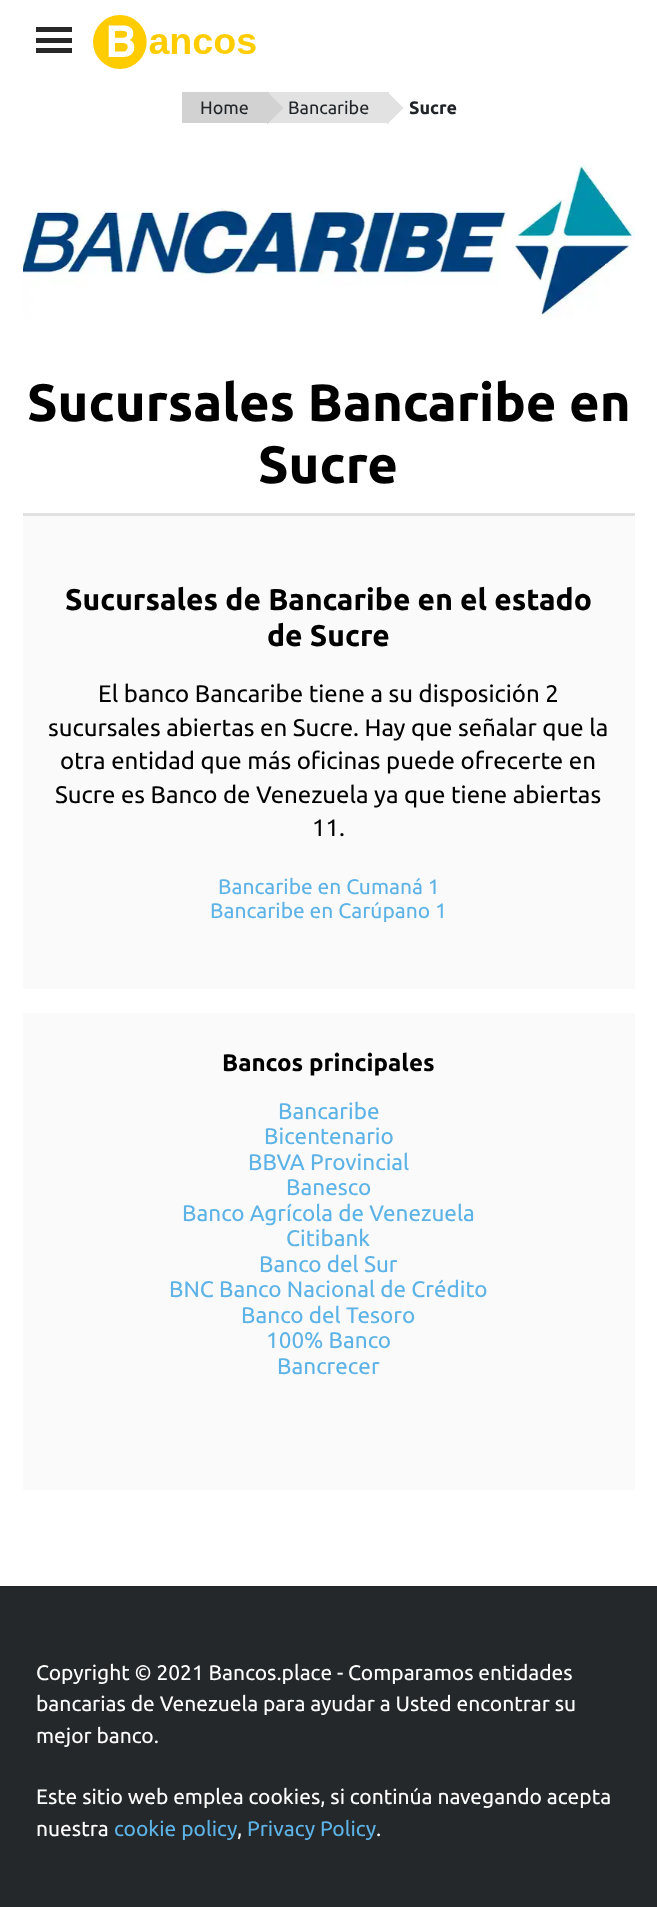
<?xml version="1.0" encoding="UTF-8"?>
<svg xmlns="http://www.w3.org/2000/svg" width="657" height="1907">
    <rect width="100%" height="100%" fill="#FFFFFF"/>
    <rect x="36" y="27" width="36" height="5" fill="#282828"/>
    <rect x="36" y="38" width="36" height="5" fill="#282828"/>
    <rect x="36" y="48" width="36" height="5" fill="#282828"/>
    <image x="93" y="15" width="163" height="54" href="img_01.png"/>
    <rect x="182" y="92" width="87" height="31" fill="#D2D2D2"/>
    <text x="200" y="114" font-family="Ubuntu" font-size="18" fill="#212529">Home</text>
    <rect x="269" y="92" width="120" height="31" fill="#E2E2E2"/>
    <path d="M 267 124.5 V 91.5 L 283.5 108 Z" fill="#D2D2D2"/>
    <text x="288" y="114" font-family="Ubuntu" font-size="18" fill="#212529">Bancaribe</text>
    <path d="M 387 124.5 V 91.5 L 403.5 108 Z" fill="#E2E2E2"/>
    <text x="409" y="114" font-family="Ubuntu" font-size="18" font-weight="700" fill="#212529">Sucre</text>
    <image x="23" y="162" width="612" height="156" href="img_02.png"/>
    <text x="27" y="421" font-family="Ubuntu" font-size="52.5" font-weight="700" fill="#000000">Sucursales Bancaribe en</text>
    <text x="258" y="483" font-family="Ubuntu" font-size="52.5" font-weight="700" fill="#000000">Sucre</text>
    <rect x="23" y="516" width="612" height="473" fill="#FAFAFA"/>
    <rect x="23" y="513" width="612" height="3" fill="#E1E1E1"/>
    <text x="65" y="610" font-family="Ubuntu" font-size="30" font-weight="700" fill="#000000">Sucursales de Bancaribe en el estado</text>
    <text x="267" y="646" font-family="Ubuntu" font-size="30" font-weight="700" fill="#000000">de Sucre</text>
    <text x="98" y="702" font-family="Ubuntu" font-size="24" fill="#000000">El banco Bancaribe tiene a su disposición 2</text>
    <text x="48" y="736" font-family="Ubuntu" font-size="24" fill="#000000">sucursales abiertas en Sucre. Hay que señalar que la</text>
    <text x="60" y="769" font-family="Ubuntu" font-size="24" fill="#000000">otra entidad que más oficinas puede ofrecerte en</text>
    <text x="55" y="803" font-family="Ubuntu" font-size="24" fill="#000000">Sucre es Banco de Venezuela ya que tiene abiertas</text>
    <text x="312" y="836" font-family="Ubuntu" font-size="24" fill="#000000">11.</text>
    <text x="218" y="894" font-family="Ubuntu" font-size="21" fill="#5DB3E6">Bancaribe en Cumaná 1</text>
    <text x="210" y="918" font-family="Ubuntu" font-size="21" fill="#5DB3E6">Bancaribe en Carúpano 1</text>
    <rect x="23" y="1013" width="612" height="477" fill="#FAFAFA"/>
    <text x="222" y="1071" font-family="Ubuntu" font-size="24" font-weight="700" fill="#000000">Bancos principales</text>
    <text x="278" y="1119" font-family="Ubuntu" font-size="22.5" fill="#5DB3E6">Bancaribe</text>
    <text x="264" y="1144" font-family="Ubuntu" font-size="22.5" fill="#5DB3E6">Bicentenario</text>
    <text x="248" y="1170" font-family="Ubuntu" font-size="22.5" fill="#5DB3E6">BBVA Provincial</text>
    <text x="286" y="1195" font-family="Ubuntu" font-size="22.5" fill="#5DB3E6">Banesco</text>
    <text x="182" y="1221" font-family="Ubuntu" font-size="22.5" fill="#5DB3E6">Banco Agrícola de Venezuela</text>
    <text x="286" y="1246" font-family="Ubuntu" font-size="22.5" fill="#5DB3E6">Citibank</text>
    <text x="259" y="1272" font-family="Ubuntu" font-size="22.5" fill="#5DB3E6">Banco del Sur</text>
    <text x="169" y="1297" font-family="Ubuntu" font-size="22.5" fill="#5DB3E6">BNC Banco Nacional de Crédito</text>
    <text x="241" y="1323" font-family="Ubuntu" font-size="22.5" fill="#5DB3E6">Banco del Tesoro</text>
    <text x="266" y="1348" font-family="Ubuntu" font-size="22.5" fill="#5DB3E6">100% Banco</text>
    <text x="277" y="1374" font-family="Ubuntu" font-size="22.5" fill="#5DB3E6">Bancrecer</text>
    <rect x="0" y="1586" width="657" height="321" fill="#24282B"/>
    <text font-family="Ubuntu" font-size="21" fill="#FFFFFF">
        <tspan x="36" y="1680">Copyright © 2021 Bancos.place - Comparamos entidades</tspan>
        <tspan x="36" y="1711">bancarias de Venezuela para ayudar a Usted encontrar su</tspan>
        <tspan x="36" y="1743">mejor banco.</tspan>
    </text>
    <text font-family="Ubuntu" font-size="21" fill="#FFFFFF">
        <tspan x="36" y="1804">Este sitio web emplea cookies, si continúa navegando acepta</tspan>
        <tspan x="36" y="1836">nuestra</tspan>
    </text>
    <text x="114" y="1836" font-family="Ubuntu" font-size="21" fill="#5DB3E6">cookie policy</text>
    <text x="237" y="1836" font-family="Ubuntu" font-size="21" fill="#FFFFFF">,</text>
    <text x="247" y="1836" font-family="Ubuntu" font-size="21" fill="#5DB3E6">Privacy Policy</text>
    <text x="376" y="1836" font-family="Ubuntu" font-size="21" fill="#FFFFFF">.</text>
</svg>
